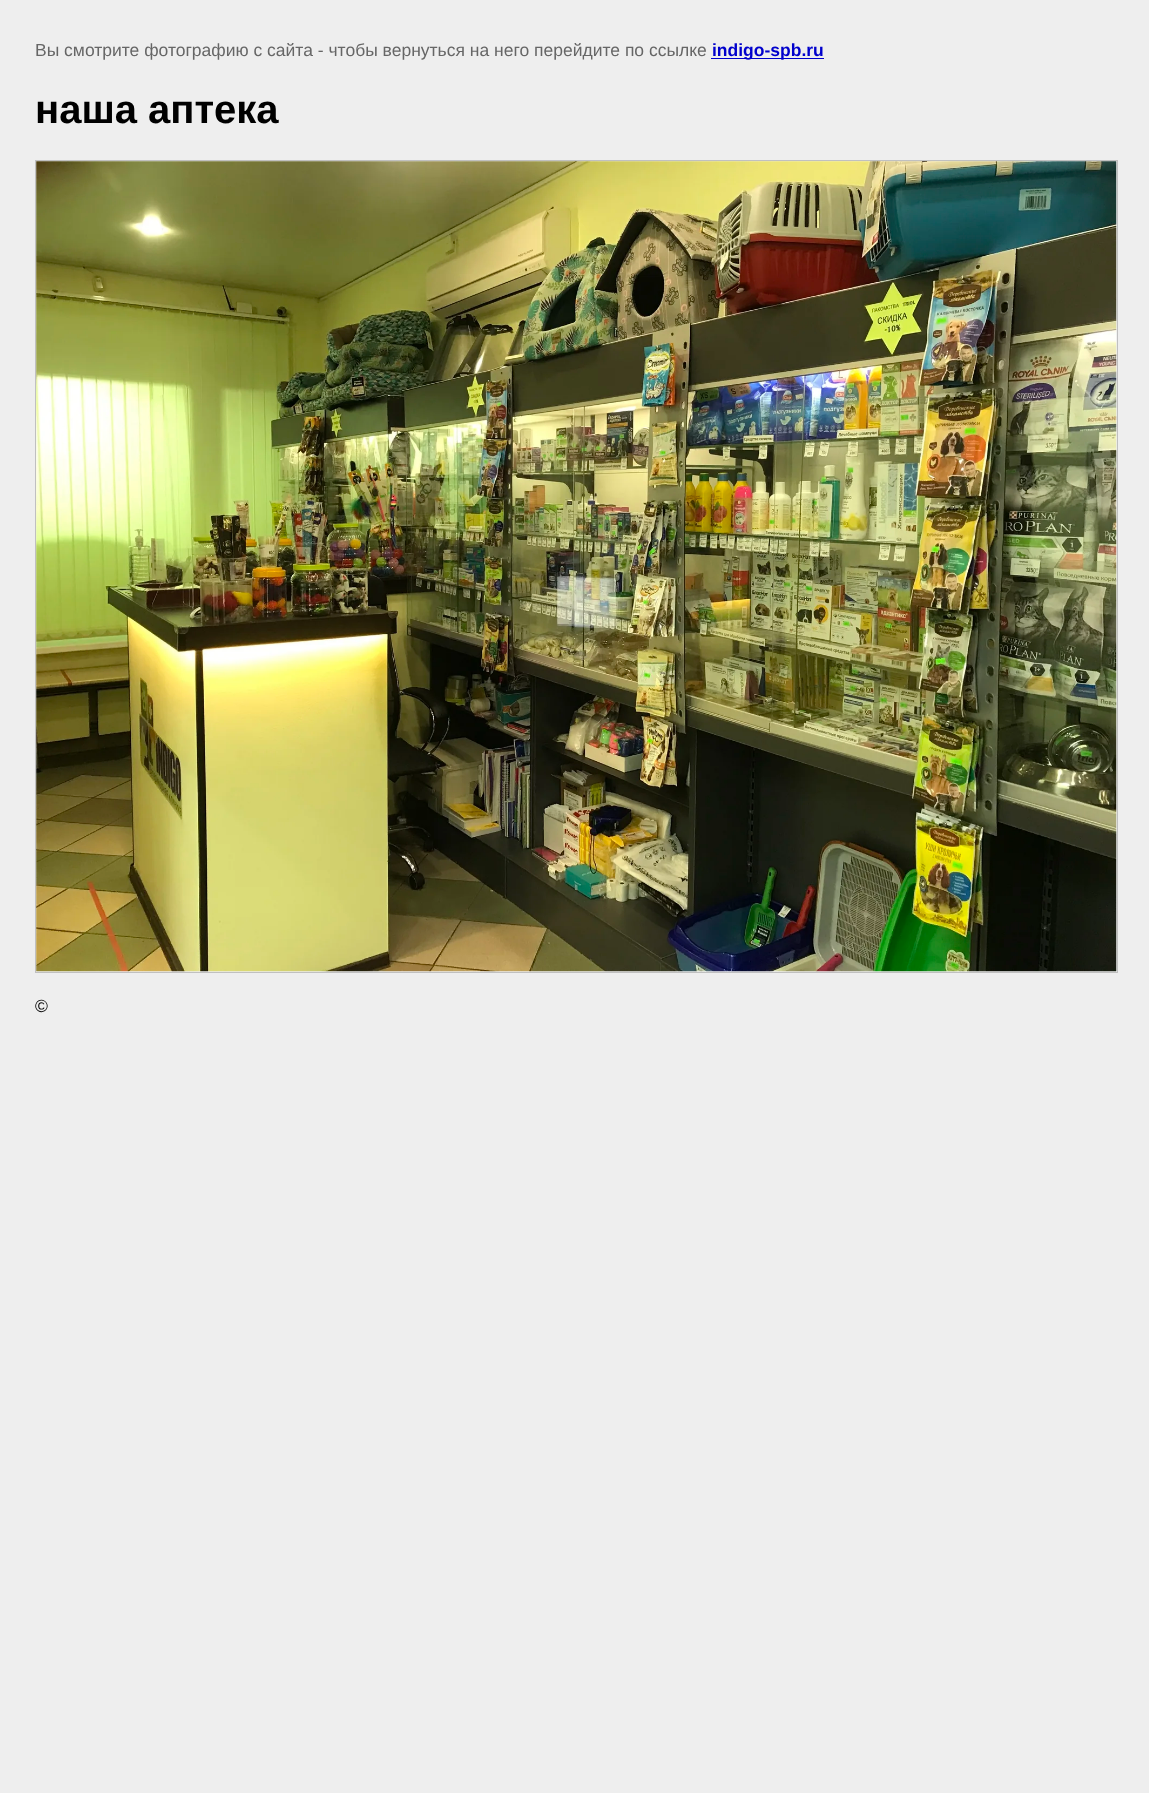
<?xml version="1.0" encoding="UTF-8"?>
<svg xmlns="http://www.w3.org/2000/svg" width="1149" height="1793">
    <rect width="100%" height="100%" fill="#EEEEEE"/>
    <text x="35" y="56" font-family="Liberation Sans" font-size="17.5" fill="#666666">Вы смотрите фотографию с сайта - чтобы вернуться на него перейдите по ссылке</text>
    <rect x="711" y="58" width="113" height="1" fill="#0000CC"/>
    <text x="712" y="56" font-family="Liberation Sans" font-size="17.5" font-weight="700" fill="#0000CC">indigo-spb.ru</text>
    <text x="35" y="123" font-family="Liberation Sans" font-size="40" font-weight="700" fill="#000000">наша аптека</text>
    <rect x="35.5" y="160.5" width="1082" height="812" fill="none" stroke="#C0C0C0"/>
    <image x="36" y="161" width="1081" height="811" href="img_01.png"/>
    <text x="35" y="1012" font-family="Liberation Sans" font-size="17.5" fill="#000000">©</text>
</svg>
